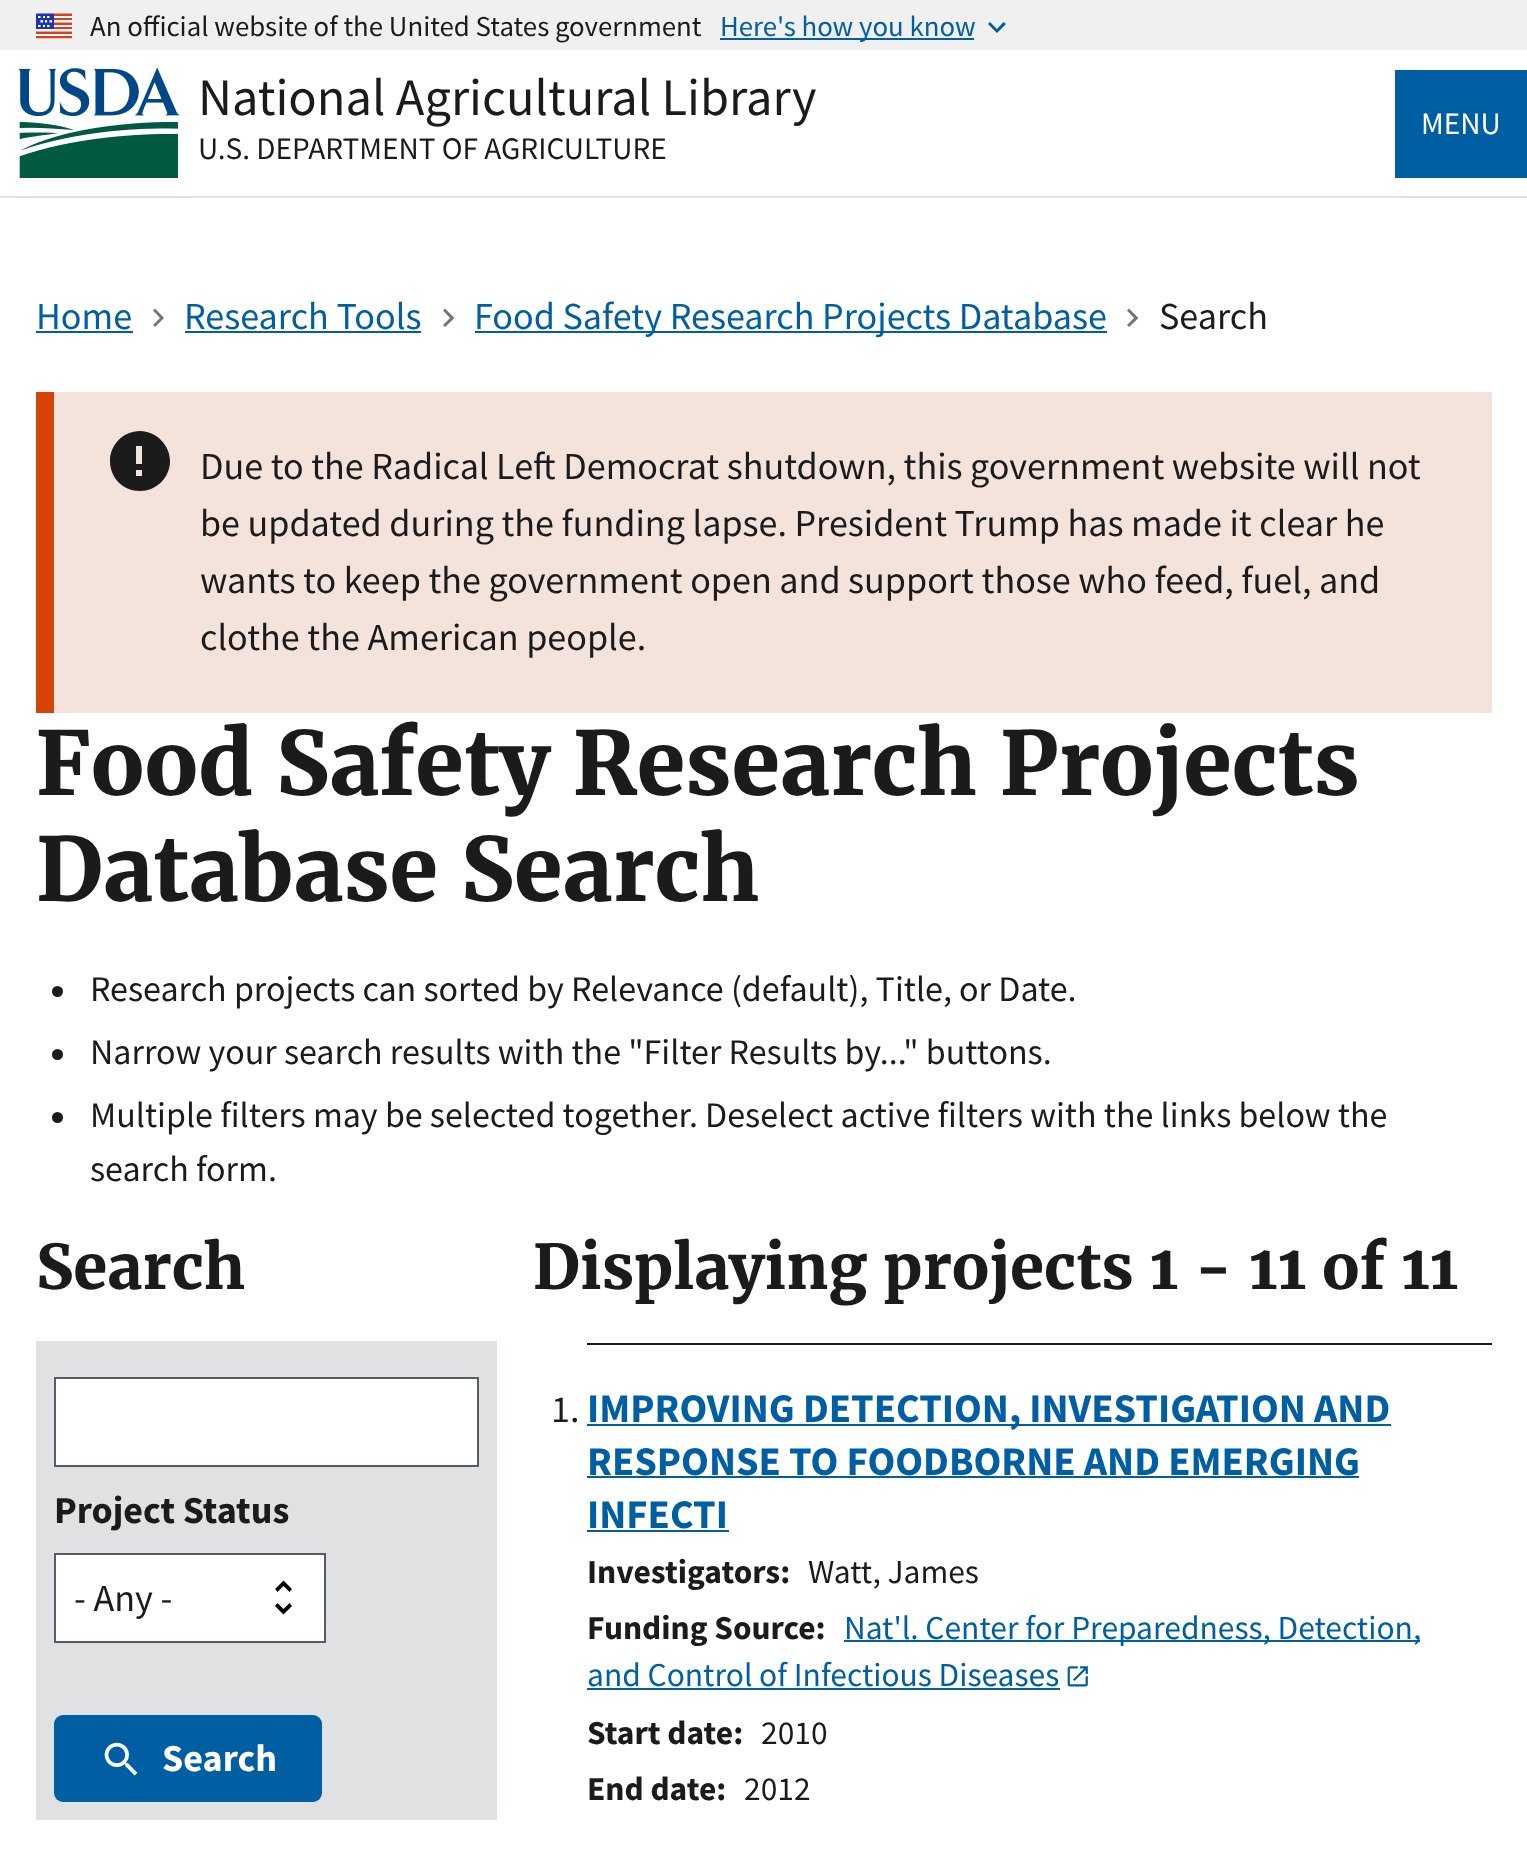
<?xml version="1.0" encoding="UTF-8"?>
<svg xmlns="http://www.w3.org/2000/svg" width="1527" height="1849">
    <rect width="100%" height="100%" fill="#FFFFFF"/>
    <rect x="0" y="0" width="1527" height="50" fill="#F0F0F0"/>
    <image x="36" y="13" width="36" height="26" href="img_01.png"/>
    <text x="90" y="36" font-family="Source Sans Pro" font-size="28.8" fill="#1B1B1B">An official website of the United States government</text>
    <rect x="720" y="38" width="254" height="2" fill="#005EA2"/>
    <text x="720" y="36" font-family="Source Sans Pro" font-size="28.8" fill="#005EA2">Here's how you know</text>
    <path d="M 1003.5 22 L 997 29 L 990 22 L 988 24 L 997 33 L 1006 24 Z" fill="#005EA2"/>
    <rect x="0" y="196" width="1527" height="2" fill="#DFE1E2"/>
    <image x="18" y="68" width="162" height="110" href="img_02.png"/>
    <text x="198" y="115" font-family="Source Sans Pro" font-size="52.5" fill="#1B1B1B">National Agricultural Library</text>
    <text x="198" y="159" font-family="Source Sans Pro" font-size="31.3" fill="#1B1B1B">U.S. DEPARTMENT OF AGRICULTURE</text>
    <rect x="1395" y="70" width="132" height="108" fill="#005EA2"/>
    <text x="1421" y="134" font-family="Source Sans Pro" font-size="31.3" fill="#FFFFFF">MENU</text>
    <text x="36" y="329" font-family="Source Sans Pro" font-size="38.15" fill="#005EA2">Home</text>
    <rect x="36" y="331" width="97" height="2" fill="#005EA2"/>
    <path d="M 155 308.5 L 153 310.5 L 160 318 L 153 325 L 155 327 L 164 318 Z" fill="#71767A"/>
    <text x="184" y="329" font-family="Source Sans Pro" font-size="38.15" fill="#005EA2">Research Tools</text>
    <rect x="185" y="331" width="236" height="2" fill="#005EA2"/>
    <path d="M 445 308.5 L 443 310.5 L 450 318 L 443 325 L 445 327 L 454.5 318 Z" fill="#71767A"/>
    <rect x="475" y="331" width="632" height="2" fill="#005EA2"/>
    <text x="474" y="329" font-family="Source Sans Pro" font-size="38.15" fill="#005EA2">Food Safety Research Projects Database</text>
    <path d="M 1129 308.5 L 1127 310.5 L 1134 318 L 1127 325 L 1129 327 L 1138.5 318 Z" fill="#71767A"/>
    <text x="1159" y="329" font-family="Source Sans Pro" font-size="38.15" fill="#1B1B1B">Search</text>
    <rect x="54" y="392" width="1438" height="321" fill="#F4E3DB"/>
    <rect x="36" y="392" width="18" height="321" fill="#D54309"/>
    <path d="M 140 431 C 123 431 110 445 110 461 C 110 478 123 491 140 491 C 156 491 170 478 170 461 C 170 445 156 431 140 431 Z M 142 476 H 136 V 470 H 142 Z M 142 464 H 136 V 446 H 142 Z" fill="#1B1B1B"/>
    <text font-family="Source Sans Pro" font-size="38.15" fill="#1B1B1B">
        <tspan x="200" y="479" word-spacing="-0.1">Due to the Radical Left Democrat shutdown, this government website will not</tspan>
        <tspan x="200" y="536" word-spacing="-0.1">be updated during the funding lapse. President Trump has made it clear he</tspan>
        <tspan x="200" y="593" word-spacing="-0.1">wants to keep the government open and support those who feed, fuel, and</tspan>
        <tspan x="200" y="650">clothe the American people.</tspan>
    </text>
    <text font-family="Merriweather" font-size="87.8" font-weight="700" fill="#1B1B1B">
        <tspan x="36" y="795">Food Safety Research Projects</tspan>
        <tspan x="36" y="901">Database Search</tspan>
    </text>
    <circle cx="57.5" cy="991.5" r="5.5" fill="#1B1B1B"/>
    <text x="90" y="1001" font-family="Source Sans Pro" font-size="36" fill="#1B1B1B">Research projects can sorted by Relevance (default), Title, or Date.</text>
    <circle cx="57.5" cy="1054.5" r="5.5" fill="#1B1B1B"/>
    <text x="90" y="1064" font-family="Source Sans Pro" font-size="36" fill="#1B1B1B">Narrow your search results with the "Filter Results by..." buttons.</text>
    <circle cx="57.5" cy="1117.5" r="5.5" fill="#1B1B1B"/>
    <text font-family="Source Sans Pro" font-size="36" fill="#1B1B1B">
        <tspan x="90" y="1127">Multiple filters may be selected together. Deselect active filters with the links below the</tspan>
        <tspan x="90" y="1181">search form.</tspan>
    </text>
    <text x="36" y="1289" font-family="Merriweather" font-size="61.5" font-weight="700" fill="#1B1B1B">Search</text>
    <rect x="36" y="1341" width="461" height="479" fill="#DFE1E2"/>
    <rect x="55" y="1378" width="423" height="88" fill="#FFFFFF" stroke="#565C65" stroke-width="2"/>
    <text x="54" y="1523" font-family="Source Sans Pro" font-size="38.15" font-weight="700" fill="#1B1B1B">Project Status</text>
    <rect x="56" y="1555" width="268" height="86" fill="#FFFFFF"/>
    <path d="M 283.5 1586 L 289.5 1592 L 292 1589 L 283.5 1580.5 L 275 1589 L 277.5 1592 Z M 283.5 1609 L 277.5 1603 L 275 1606 L 283.5 1614.5 L 292 1606 L 289.5 1603 Z" fill="#000000"/>
    <rect x="55" y="1554" width="270" height="88" fill="none" stroke="#565C65" stroke-width="2"/>
    <text x="74" y="1611" font-family="Source Sans Pro" font-size="38.15" fill="#1B1B1B">- Any -</text>
    <rect x="54" y="1715" width="268" height="87" rx="9" fill="#005EA2"/>
    <image x="104" y="1742" width="34" height="34" href="img_03.png"/>
    <text x="162" y="1771" font-family="Source Sans Pro" font-size="38.15" font-weight="700" fill="#FFFFFF">Search</text>
    <text x="533" y="1289" font-family="Merriweather" font-size="61.5" font-weight="700" fill="#1B1B1B">Displaying projects 1 - 11 of 11</text>
    <rect x="587" y="1343" width="905" height="2" fill="#1B1B1B"/>
    <text x="551" y="1422" font-family="Source Sans Pro" font-size="38.15" fill="#1B1B1B">1.</text>
    <rect x="587" y="1424" width="804" height="2" fill="#005EA2"/>
    <text font-family="Source Sans Pro" font-size="40.7" font-weight="700" fill="#005EA2">
        <tspan x="587" y="1422">IMPROVING DETECTION, INVESTIGATION AND</tspan>
        <tspan x="587" y="1475">RESPONSE TO FOODBORNE AND EMERGING</tspan>
    </text>
    <rect x="587" y="1476" width="772" height="2" fill="#005EA2"/>
    <text x="587" y="1528" font-family="Source Sans Pro" font-size="40.7" font-weight="700" fill="#005EA2">INFECTI</text>
    <rect x="587" y="1530" width="142" height="2" fill="#005EA2"/>
    <text x="587" y="1583" font-family="Source Sans Pro" font-size="33.5" font-weight="700" fill="#1B1B1B">Investigators:</text>
    <text x="808" y="1583" font-family="Source Sans Pro" font-size="33.5" fill="#1B1B1B">Watt, James</text>
    <text x="587" y="1639" font-family="Source Sans Pro" font-size="33.5" font-weight="700" fill="#1B1B1B">Funding Source:</text>
    <rect x="844" y="1640" width="576" height="2" fill="#005EA2"/>
    <text x="844" y="1639" font-family="Source Sans Pro" font-size="33.5" fill="#005EA2">Nat'l. Center for Preparedness, Detection,</text>
    <text x="587" y="1686" font-family="Source Sans Pro" font-size="33.5" fill="#005EA2">and Control of Infectious Diseases</text>
    <rect x="587" y="1688" width="473" height="2" fill="#005EA2"/>
    <image x="1067" y="1666" width="21" height="21" href="img_04.png"/>
    <text x="587" y="1744" font-family="Source Sans Pro" font-size="33.5" font-weight="700" fill="#1B1B1B">Start date:</text>
    <text x="761" y="1744" font-family="Source Sans Pro" font-size="33.5" fill="#1B1B1B">2010</text>
    <text x="587" y="1800" font-family="Source Sans Pro" font-size="33.5" font-weight="700" fill="#1B1B1B">End date:</text>
    <text x="744" y="1800" font-family="Source Sans Pro" font-size="33.5" fill="#1B1B1B">2012</text>
</svg>
